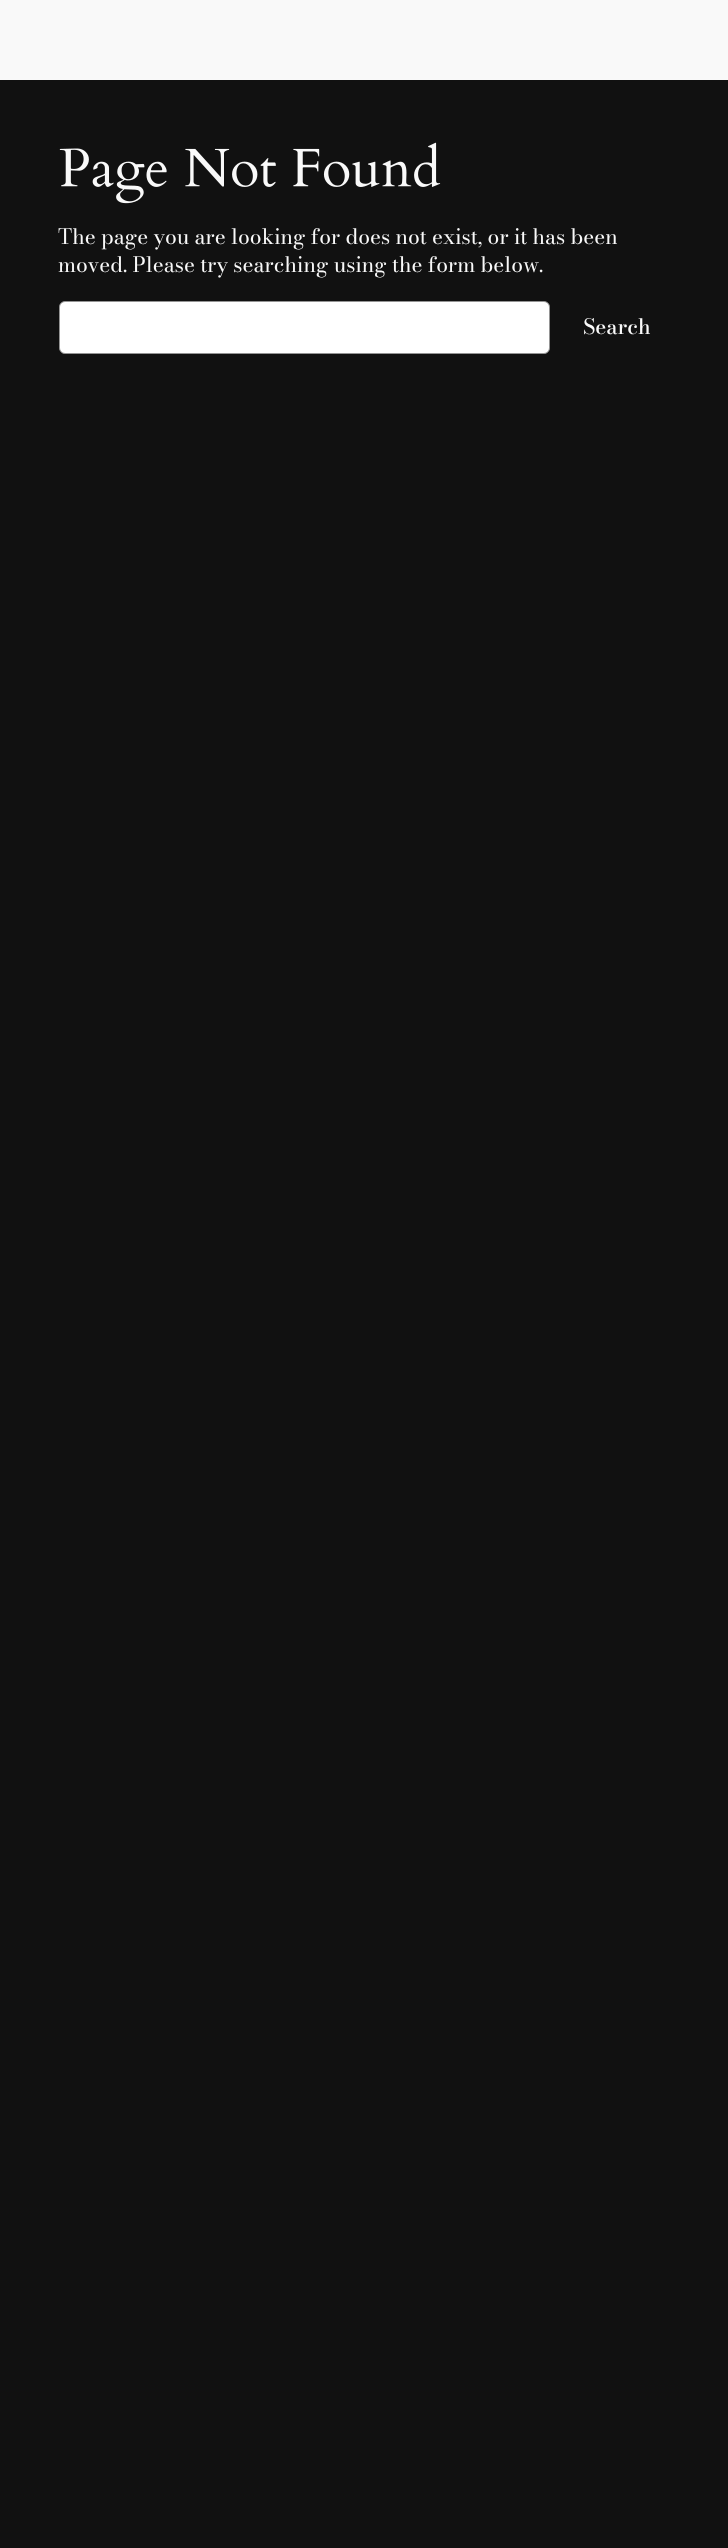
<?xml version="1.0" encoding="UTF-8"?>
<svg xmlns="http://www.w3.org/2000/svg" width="728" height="2548">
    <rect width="100%" height="100%" fill="#111111"/>
    <rect x="0" y="0" width="728" height="80" fill="#F9F9F9"/>
    <image x="59" y="142" width="382" height="62" href="img_01.png"/>
    <text font-family="Bodoni Moda" font-size="21" fill="#F9F9F9">
        <tspan x="58" y="244">The page you are looking for does not exist, or it has been</tspan>
        <tspan x="58" y="272">moved. Please try searching using the form below.</tspan>
    </text>
    <rect x="59.5" y="301.5" width="490" height="52" rx="5.5" fill="#FFFFFF" stroke="#949494"/>
    <text x="583" y="334" font-family="Bodoni Moda" font-size="21" font-weight="500" fill="#F9F9F9">Search</text>
</svg>
